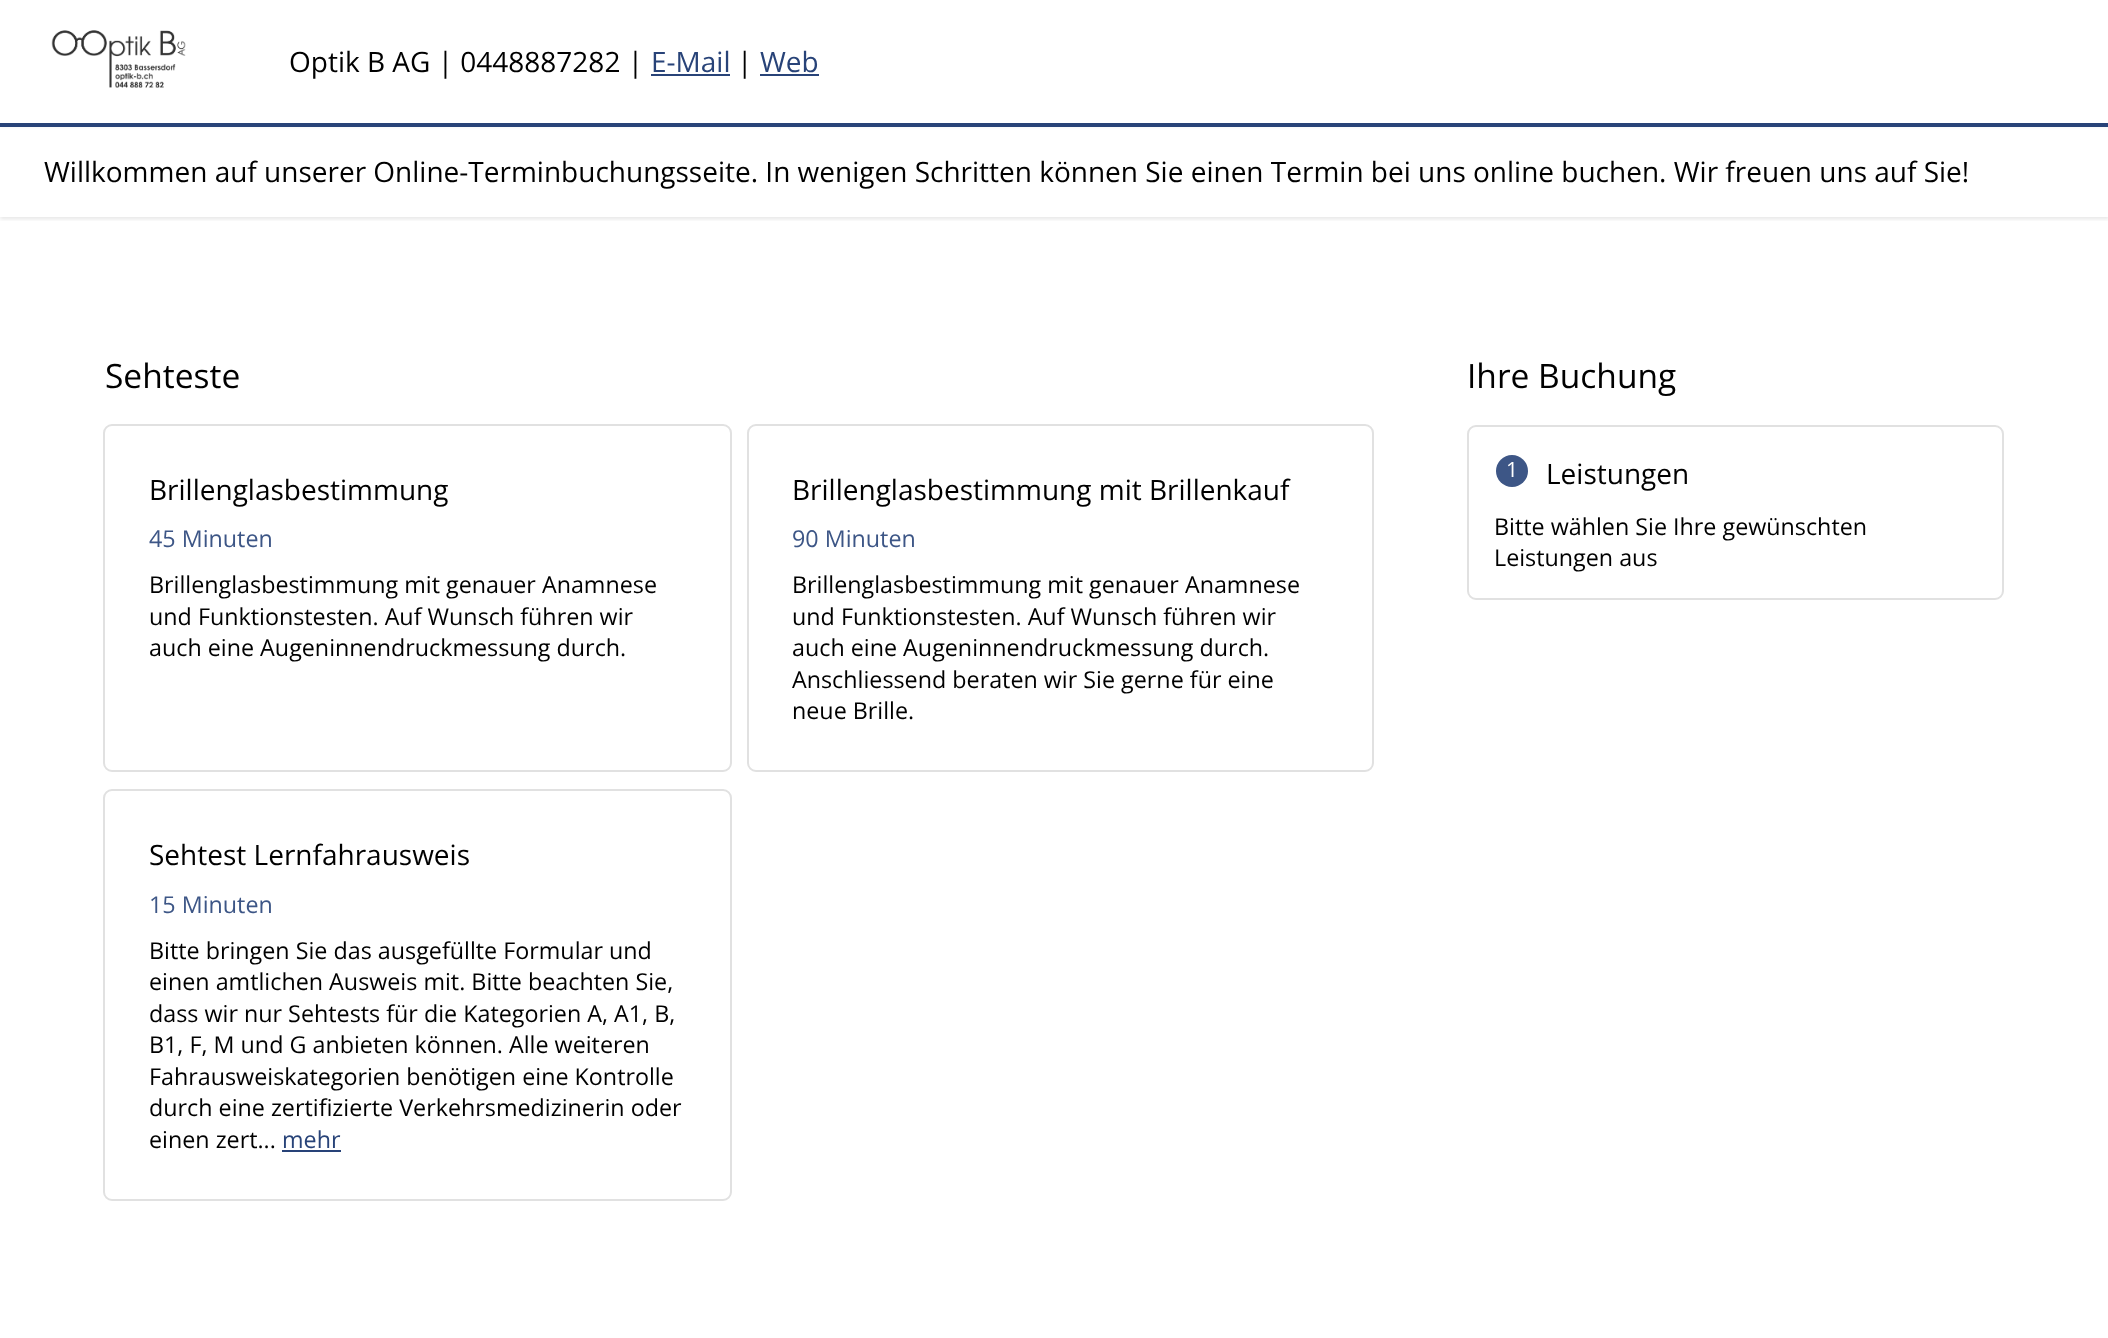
<?xml version="1.0" encoding="UTF-8"?>
<svg xmlns="http://www.w3.org/2000/svg" width="2108" height="1338">
    <defs>
        <filter id="blur1" x="-50%" y="-200%" width="200%" height="500%"><feGaussianBlur stdDeviation="2"/></filter>
        <clipPath id="clip1"><rect x="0" y="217" width="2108" height="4"/></clipPath>
    </defs>
    <rect width="100%" height="100%" fill="#FFFFFF"/>
    <rect x="0" y="0" width="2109" height="126" fill="#000000" fill-opacity="0.1" filter="url(#blur1)"/>
    <g clip-path="url(#clip1)">
        <rect x="0" y="128" width="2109" height="91" fill="#000000" fill-opacity="0.1" filter="url(#blur1)"/>
    </g>
    <rect x="0" y="0" width="2108" height="123" fill="#FFFFFF"/>
    <rect x="0" y="123" width="2108" height="4" fill="#284378"/>
    <image x="51" y="30" width="135" height="58" href="img_01.png"/>
    <text x="289" y="72" font-family="Open Sans" font-size="28" fill="#000000">Optik B AG | 0448887282 |</text>
    <text x="651" y="72" font-family="Open Sans" font-size="28" fill="#284378">E-Mail</text>
    <rect x="651" y="74" width="79" height="2" fill="#284378"/>
    <text x="737" y="72" font-family="Open Sans" font-size="28" fill="#000000">|</text>
    <text x="760" y="72" font-family="Open Sans" font-size="28" fill="#284378">Web</text>
    <rect x="760" y="74" width="59" height="2" fill="#284378"/>
    <text x="44" y="182" font-family="Open Sans" font-size="28" fill="#000000">Willkommen auf unserer Online-Terminbuchungsseite. In wenigen Schritten können Sie einen Termin bei uns online buchen. Wir freuen uns auf Sie!</text>
    <text x="105" y="388" font-family="Open Sans" font-size="33.5" fill="#000000">Sehteste</text>
    <rect x="104" y="425" width="627" height="346" rx="8" fill="none" stroke="#E1E1E1" stroke-width="2"/>
    <text x="149" y="500" font-family="Open Sans" font-size="28" fill="#000000">Brillenglasbestimmung</text>
    <text x="149" y="547" font-family="Open Sans" font-size="23.3" fill="#3D5686">45 Minuten</text>
    <text font-family="Open Sans" font-size="23.3" fill="#000000">
        <tspan x="149" y="593">Brillenglasbestimmung mit genauer Anamnese</tspan>
        <tspan x="149" y="625">und Funktionstesten. Auf Wunsch führen wir</tspan>
        <tspan x="149" y="656">auch eine Augeninnendruckmessung durch.</tspan>
    </text>
    <rect x="748" y="425" width="625" height="346" rx="8" fill="none" stroke="#E1E1E1" stroke-width="2"/>
    <text x="792" y="500" font-family="Open Sans" font-size="28" fill="#000000">Brillenglasbestimmung mit Brillenkauf</text>
    <text x="792" y="547" font-family="Open Sans" font-size="23.3" fill="#3D5686">90 Minuten</text>
    <text font-family="Open Sans" font-size="23.3" fill="#000000">
        <tspan x="792" y="593">Brillenglasbestimmung mit genauer Anamnese</tspan>
        <tspan x="792" y="625">und Funktionstesten. Auf Wunsch führen wir</tspan>
        <tspan x="792" y="656">auch eine Augeninnendruckmessung durch.</tspan>
        <tspan x="792" y="688">Anschliessend beraten wir Sie gerne für eine</tspan>
        <tspan x="792" y="719">neue Brille.</tspan>
    </text>
    <rect x="104" y="790" width="627" height="410" rx="8" fill="none" stroke="#E1E1E1" stroke-width="2"/>
    <text x="149" y="865" font-family="Open Sans" font-size="28" fill="#000000">Sehtest Lernfahrausweis</text>
    <text x="149" y="913" font-family="Open Sans" font-size="23.3" fill="#3D5686">15 Minuten</text>
    <text font-family="Open Sans" font-size="23.3" fill="#000000">
        <tspan x="149" y="959">Bitte bringen Sie das ausgefüllte Formular und</tspan>
        <tspan x="149" y="990">einen amtlichen Ausweis mit. Bitte beachten Sie,</tspan>
        <tspan x="149" y="1022">dass wir nur Sehtests für die Kategorien A, A1, B,</tspan>
        <tspan x="149" y="1053">B1, F, M und G anbieten können. Alle weiteren</tspan>
        <tspan x="149" y="1085">Fahrausweiskategorien benötigen eine Kontrolle</tspan>
        <tspan x="149" y="1116">durch eine zertifizierte Verkehrsmedizinerin oder</tspan>
        <tspan x="149" y="1148">einen zert...</tspan>
    </text>
    <text x="282" y="1148" font-family="Open Sans" font-size="23.3" fill="#284378">mehr</text>
    <rect x="282" y="1150" width="59" height="2" fill="#284378"/>
    <text x="1467" y="388" font-family="Open Sans" font-size="33.5" fill="#000000">Ihre Buchung</text>
    <rect x="1468" y="426" width="535" height="173" rx="8" fill="none" stroke="#E1E1E1" stroke-width="2"/>
    <circle cx="1512" cy="471" r="16" fill="#3D5686"/>
    <text x="1506" y="477" font-family="Open Sans" font-size="21" fill="#FFFFFF">1</text>
    <text x="1546" y="484" font-family="Open Sans" font-size="28" fill="#000000">Leistungen</text>
    <text font-family="Open Sans" font-size="23.3" fill="#000000">
        <tspan x="1494" y="535">Bitte wählen Sie Ihre gewünschten</tspan>
        <tspan x="1494" y="566">Leistungen aus</tspan>
    </text>
</svg>
